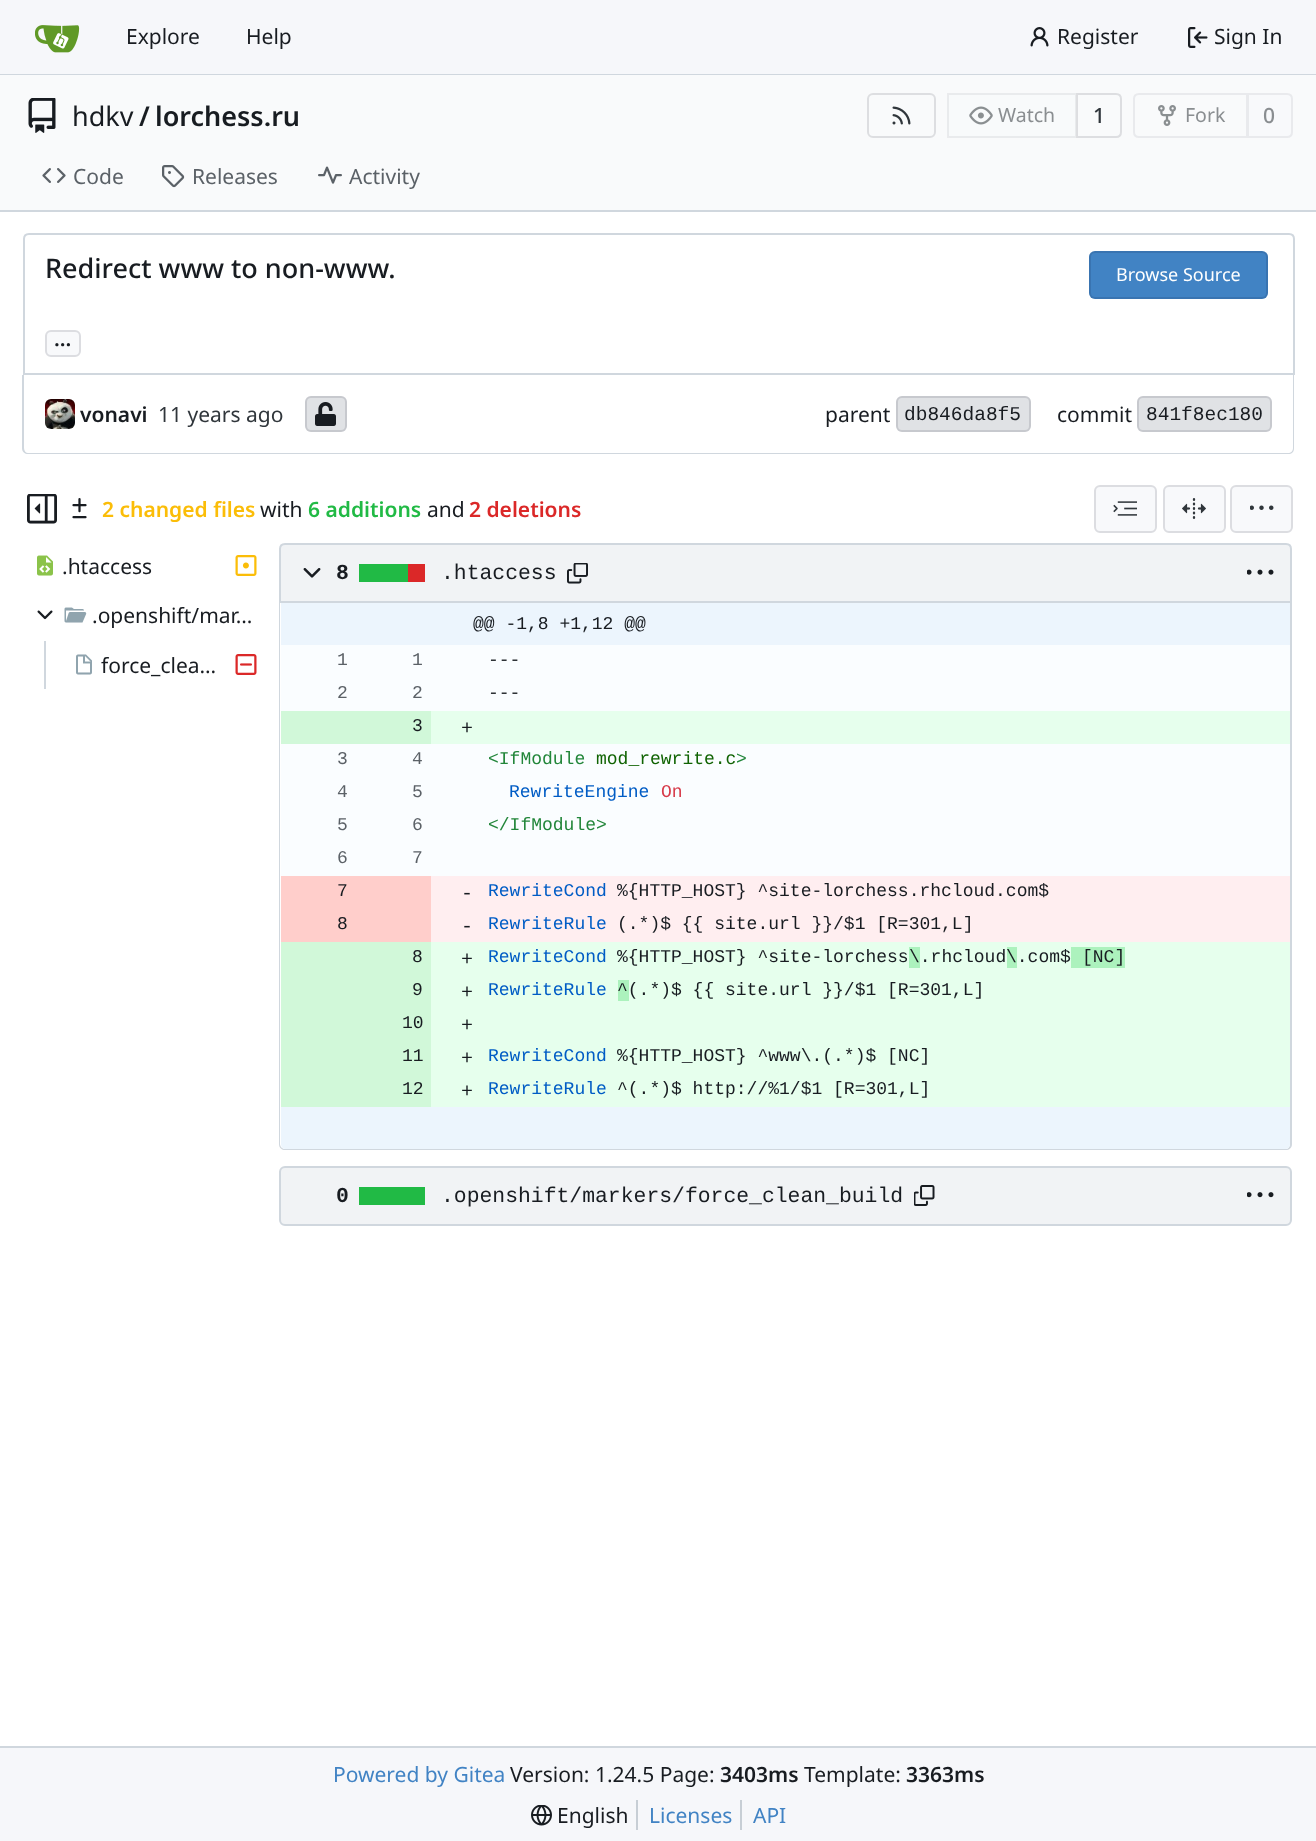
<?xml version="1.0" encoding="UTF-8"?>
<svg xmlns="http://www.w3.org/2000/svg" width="1316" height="1841">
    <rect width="100%" height="100%" fill="#FFFFFF"/>
    <rect x="0" y="0" width="1316" height="74" fill="#F6F7FA"/>
    <rect x="0" y="74" width="1316" height="1" fill="#D0D7DE"/>
    <image x="35" y="25" width="45" height="28" href="img_01.png"/>
    <text x="126" y="44" font-family="Noto Sans" font-size="21" fill="#181C21">Explore</text>
    <text x="246" y="44" font-family="Noto Sans" font-size="21" fill="#181C21">Help</text>
    <image x="1030" y="27" width="19" height="20" href="img_02.png"/>
    <text x="1057" y="44" font-family="Noto Sans" font-size="21" fill="#181C21">Register</text>
    <image x="1188" y="27" width="20" height="21" href="img_03.png"/>
    <text x="1214" y="44" font-family="Noto Sans" font-size="21" fill="#181C21">Sign In</text>
    <rect x="0" y="75" width="1316" height="135" fill="#F9FAFB"/>
    <image x="28" y="98" width="28" height="35" href="img_04.png"/>
    <text x="72" y="126" font-family="Noto Sans" font-size="27" fill="#181C21">hdkv</text>
    <text x="139" y="126" font-family="Noto Sans" font-size="27" font-weight="600" fill="#181C21">/</text>
    <text x="155" y="126" font-family="Noto Sans" font-size="27" font-weight="600" fill="#181C21">lorchess.ru</text>
    <rect x="868" y="94" width="67" height="43" rx="5" fill="none" stroke="#DDDEE1" stroke-width="2"/>
    <image x="892" y="106" width="19" height="19" href="img_05.png"/>
    <path d="M 1077 94 H 1116 C 1119 94 1121 96 1121 99 V 132 C 1121 135 1119 137 1116 137 H 1077 Z" fill="none" stroke="#DDDEE1" stroke-width="2"/>
    <path d="M 953 93 H 1077 V 138 H 953 C 949.5 138 947 135.5 947 132 V 99 C 947 95.5 949.5 93 953 93 Z" fill="#F8F9FB" fill-opacity="0.55"/>
    <rect x="948" y="94" width="128" height="43" fill="none" stroke="#000017" stroke-opacity="0.06" stroke-width="2"/>
    <image x="969" y="106" width="24" height="19" href="img_06.png"/>
    <text x="998" y="122" font-family="Noto Sans" font-size="19.5" fill="#8A8E91">Watch</text>
    <text x="1093" y="123" font-family="Noto Sans" font-size="21" font-weight="500" fill="#30363B">1</text>
    <path d="M 1139 94 H 1247 V 137 H 1139 C 1136 137 1134 135 1134 132 V 99 C 1134 96 1136 94 1139 94 Z" fill="none" stroke="#E9EAED" stroke-width="2"/>
    <image x="1158" y="105" width="18" height="21" href="img_07.png"/>
    <text x="1185" y="122" font-family="Noto Sans" font-size="19.5" fill="#8A8E91">Fork</text>
    <path d="M 1248 94 H 1287 C 1290 94 1292 96 1292 99 V 132 C 1292 135 1290 137 1287 137 H 1248 Z" fill="#F8F9FB" stroke="#E9EAED" stroke-width="2"/>
    <text x="1263" y="123" font-family="Noto Sans" font-size="21" font-weight="500" fill="#8A8E91">0</text>
    <image x="42" y="168" width="24" height="15" href="img_08.png"/>
    <text x="73" y="184" font-family="Noto Sans" font-size="21" fill="#5B6167">Code</text>
    <image x="162" y="165" width="23" height="23" href="img_09.png"/>
    <text x="192" y="184" font-family="Noto Sans" font-size="21" fill="#5B6167">Releases</text>
    <image x="318" y="166" width="24" height="18" href="img_10.png"/>
    <text x="349" y="184" font-family="Noto Sans" font-size="21" fill="#5B6167">Activity</text>
    <rect x="0" y="210" width="1316" height="2" fill="#D0D7DE"/>
    <path d="M 29 234 H 1289 C 1292 234 1294 236 1294 239 V 374 H 24 V 239 C 24 236 26 234 29 234 Z" fill="none" stroke="#D0D7DE" stroke-width="2"/>
    <text x="45" y="278" font-family="Noto Sans" font-size="27" font-weight="500" fill="#181C21">Redirect www to non-www.</text>
    <rect x="1089" y="251" width="179" height="48" rx="6" fill="#4183C4"/>
    <rect x="1090" y="252" width="177" height="46" rx="5" fill="none" stroke="#000017" stroke-opacity="0.11" stroke-width="2"/>
    <text x="1116" y="281" font-family="Noto Sans" font-size="18" fill="#FFFFFF">Browse Source</text>
    <rect x="46" y="331" width="34" height="25" rx="5" fill="#F8F9FB" stroke="#DCDDE1" stroke-width="2"/>
    <text x="54" y="346" font-family="Noto Sans" font-size="21" font-weight="600" fill="#181C21">...</text>
    <path d="M 22 375 H 1294 V 448 C 1294 452 1292 454 1288 454 H 28 C 25 454 22 452 22 448 Z M 24 375 H 1293 V 448 C 1293 451 1291 453 1288 453 H 28 C 26 453 24 451 24 448 Z" fill="#D0D7DE" fill-rule="evenodd"/>
    <image x="45" y="399" width="30" height="30" href="img_11.png"/>
    <text x="80" y="422" font-family="Noto Sans" font-size="21" font-weight="600" fill="#181C21">vonavi</text>
    <text x="158" y="422" font-family="Noto Sans" font-size="21" fill="#30363B">11 years ago</text>
    <rect x="305" y="396" width="42" height="36" rx="6" fill="#E0E2E5"/>
    <rect x="306" y="397" width="40" height="34" rx="5" fill="none" stroke="#000017" stroke-opacity="0.11" stroke-width="2"/>
    <image x="315" y="402" width="21" height="24" href="img_12.png"/>
    <text x="825" y="422" font-family="Noto Sans" font-size="21" fill="#181C21">parent</text>
    <rect x="896" y="396" width="135" height="36" rx="6" fill="#E0E2E5"/>
    <rect x="897" y="397" width="133" height="34" rx="5" fill="none" stroke="#000017" stroke-opacity="0.11" stroke-width="2"/>
    <text x="904" y="420" font-family="Liberation Mono" font-size="19.5" fill="#181C21">db846da8f5</text>
    <text x="1057" y="422" font-family="Noto Sans" font-size="21" fill="#181C21">commit</text>
    <rect x="1137" y="396" width="135" height="36" rx="6" fill="#E0E2E5"/>
    <rect x="1138" y="397" width="133" height="34" rx="5" fill="none" stroke="#000017" stroke-opacity="0.11" stroke-width="2"/>
    <text x="1146" y="420" font-family="Liberation Mono" font-size="19.5" fill="#181C21">841f8ec180</text>
    <image x="27" y="494" width="30" height="30" href="img_13.png"/>
    <image x="72" y="498" width="15" height="21" href="img_14.png"/>
    <text x="102" y="517" font-family="Noto Sans" font-size="21" font-weight="600" fill="#FBBD08">2 changed files</text>
    <text x="260" y="517" font-family="Noto Sans" font-size="21" fill="#181C21">with</text>
    <text x="308" y="517" font-family="Noto Sans" font-size="21" font-weight="600" fill="#21BA45">6 additions</text>
    <text x="427" y="517" font-family="Noto Sans" font-size="21" fill="#181C21">and</text>
    <text x="469" y="517" font-family="Noto Sans" font-size="21" font-weight="600" fill="#DB2828">2 deletions</text>
    <rect x="1095" y="486" width="61" height="46" rx="5" fill="#F8F9FB" stroke="#DCDDE1" stroke-width="2"/>
    <image x="1113" y="501" width="24" height="15" href="img_15.png"/>
    <rect x="1164" y="486" width="61" height="46" rx="5" fill="#F8F9FB" stroke="#DCDDE1" stroke-width="2"/>
    <image x="1182" y="498" width="24" height="21" href="img_16.png"/>
    <rect x="1231" y="486" width="61" height="46" rx="5" fill="#F8F9FB" stroke="#DCDDE1" stroke-width="2"/>
    <image x="1250" y="505" width="24" height="5" href="img_17.png"/>
    <image x="37" y="555" width="16" height="21" href="img_18.png"/>
    <text x="62" y="574" font-family="Noto Sans" font-size="21" fill="#181C21">.htaccess</text>
    <image x="235" y="555" width="22" height="21" href="img_19.png"/>
    <image x="37" y="610" width="16" height="10" href="img_20.png"/>
    <image x="64" y="607" width="23" height="16" href="img_21.png"/>
    <text x="92" y="623" font-family="Noto Sans" font-size="21" fill="#181C21">.openshift/mar…</text>
    <rect x="44" y="641" width="2" height="48" fill="#D0D7DE"/>
    <image x="76" y="654" width="16" height="21" href="img_22.png"/>
    <text x="101" y="673" font-family="Noto Sans" font-size="21" fill="#181C21">force_clea…</text>
    <image x="235" y="654" width="22" height="21" href="img_23.png"/>
    <path d="M 285 544 H 1286 C 1289 544 1291 546 1291 549 V 602 H 280 V 549 C 280 546 282 544 285 544 Z" fill="#F1F3F5" stroke="#D0D7DE" stroke-width="2"/>
    <image x="303" y="568" width="18" height="10" href="img_24.png"/>
    <text x="336" y="579" font-family="Liberation Mono" font-size="21.4" font-weight="700" fill="#181C21">8</text>
    <rect x="408" y="564" width="17" height="18" fill="#DB2828"/>
    <rect x="359" y="564" width="49" height="18" fill="#21BA45"/>
    <text x="441" y="579" font-family="Liberation Mono" font-size="21.4" fill="#181C21">.htaccess</text>
    <image x="567" y="563" width="21" height="21" href="img_25.png"/>
    <image x="1247" y="569" width="27" height="6" href="img_26.png"/>
    <path d="M 279 603 H 1292 V 1144 C 1292 1148 1289 1150 1286 1150 H 285 C 282 1150 279 1148 279 1144 Z M 280 603 H 1290 V 1144 C 1290 1147 1288 1149 1286 1149 H 285 C 283 1149 280 1147 280 1144 Z" fill="#D0D7DE" fill-rule="evenodd"/>
    <rect x="281" y="603" width="1009" height="546" rx="6" fill="#FAFDFF"/>
    <rect x="281" y="603" width="1009" height="42" fill="#ECF5FD"/>
    <text x="473" y="629" font-family="Liberation Mono" font-size="18" fill="#181C21">@@ -1,8 +1,12 @@</text>
    <text x="337" y="665" font-family="Liberation Mono" font-size="18" fill="#5B6167">1</text>
    <text x="412" y="665" font-family="Liberation Mono" font-size="18" fill="#5B6167">1</text>
    <text x="488" y="665" font-family="Liberation Mono" font-size="18" fill="#181C21">---</text>
    <text x="337" y="698" font-family="Liberation Mono" font-size="18" fill="#5B6167">2</text>
    <text x="412" y="698" font-family="Liberation Mono" font-size="18" fill="#5B6167">2</text>
    <text x="488" y="698" font-family="Liberation Mono" font-size="18" fill="#181C21">---</text>
    <rect x="431" y="711" width="859" height="33" fill="#E6FFED"/>
    <rect x="281" y="711" width="150" height="33" fill="#D1F8D9"/>
    <text x="412" y="731" font-family="Liberation Mono" font-size="18" fill="#181C21">3</text>
    <text x="461" y="734" font-family="Liberation Mono" font-size="20" fill="#181C21">+</text>
    <text x="337" y="764" font-family="Liberation Mono" font-size="18" fill="#5B6167">3</text>
    <text x="412" y="764" font-family="Liberation Mono" font-size="18" fill="#5B6167">4</text>
    <text x="488" y="764" font-family="Liberation Mono" font-size="18" fill="#22863A">&lt;IfModule</text>
    <text x="596" y="764" font-family="Liberation Mono" font-size="18" fill="#106303">mod_rewrite.c</text>
    <text x="736" y="764" font-family="Liberation Mono" font-size="18" fill="#22863A">&gt;</text>
    <text x="337" y="797" font-family="Liberation Mono" font-size="18" fill="#5B6167">4</text>
    <text x="412" y="797" font-family="Liberation Mono" font-size="18" fill="#5B6167">5</text>
    <text x="509" y="797" font-family="Liberation Mono" font-size="18" fill="#005CC5">RewriteEngine</text>
    <text x="661" y="797" font-family="Liberation Mono" font-size="18" fill="#D73A49">On</text>
    <text x="337" y="830" font-family="Liberation Mono" font-size="18" fill="#5B6167">5</text>
    <text x="412" y="830" font-family="Liberation Mono" font-size="18" fill="#5B6167">6</text>
    <text x="488" y="830" font-family="Liberation Mono" font-size="18" fill="#22863A">&lt;/IfModule&gt;</text>
    <text x="337" y="863" font-family="Liberation Mono" font-size="18" fill="#5B6167">6</text>
    <text x="412" y="863" font-family="Liberation Mono" font-size="18" fill="#5B6167">7</text>
    <rect x="431" y="876" width="859" height="66" fill="#FFEEF0"/>
    <rect x="281" y="876" width="150" height="33" fill="#FFCECB"/>
    <text x="337" y="896" font-family="Liberation Mono" font-size="18" fill="#181C21">7</text>
    <text x="461" y="899" font-family="Liberation Mono" font-size="20" fill="#181C21">-</text>
    <text x="488" y="896" font-family="Liberation Mono" font-size="18" fill="#005CC5">RewriteCond</text>
    <text x="617" y="896" font-family="Liberation Mono" font-size="18" fill="#181C21">%{HTTP_HOST} ^site-lorchess.rhcloud.com$</text>
    <rect x="281" y="909" width="150" height="33" fill="#FFCECB"/>
    <text x="337" y="929" font-family="Liberation Mono" font-size="18" fill="#181C21">8</text>
    <text x="461" y="932" font-family="Liberation Mono" font-size="20" fill="#181C21">-</text>
    <text x="488" y="929" font-family="Liberation Mono" font-size="18" fill="#005CC5">RewriteRule</text>
    <text x="617" y="929" font-family="Liberation Mono" font-size="18" fill="#181C21">(.*)$ {{ site.url }}/$1 [R=301,L]</text>
    <rect x="431" y="942" width="859" height="165" fill="#E6FFED"/>
    <rect x="281" y="942" width="150" height="33" fill="#D1F8D9"/>
    <text x="488" y="962" font-family="Liberation Mono" font-size="18" fill="#005CC5">RewriteCond</text>
    <text x="617" y="962" font-family="Liberation Mono" font-size="18" fill="#181C21">%{HTTP_HOST} ^site-lorchess</text>
    <rect x="909" y="947" width="11" height="21" fill="#ACF2BD"/>
    <text x="909" y="962" font-family="Liberation Mono" font-size="18" fill="#181C21">\.rhcloud</text>
    <rect x="1007" y="947" width="10" height="21" fill="#ACF2BD"/>
    <text x="1006" y="962" font-family="Liberation Mono" font-size="18" fill="#181C21">\.com$</text>
    <rect x="1071" y="947" width="54" height="21" fill="#ACF2BD"/>
    <text x="1082" y="962" font-family="Liberation Mono" font-size="18" fill="#181C21">[NC]</text>
    <text x="412" y="962" font-family="Liberation Mono" font-size="18" fill="#181C21">8</text>
    <text x="461" y="965" font-family="Liberation Mono" font-size="20" fill="#181C21">+</text>
    <rect x="281" y="975" width="150" height="33" fill="#D1F8D9"/>
    <text x="488" y="995" font-family="Liberation Mono" font-size="18" fill="#005CC5">RewriteRule</text>
    <rect x="618" y="980" width="11" height="21" fill="#ACF2BD"/>
    <text x="617" y="995" font-family="Liberation Mono" font-size="18" fill="#181C21">^(.*)$ {{ site.url }}/$1 [R=301,L]</text>
    <text x="412" y="995" font-family="Liberation Mono" font-size="18" fill="#181C21">9</text>
    <text x="461" y="998" font-family="Liberation Mono" font-size="20" fill="#181C21">+</text>
    <rect x="281" y="1008" width="150" height="33" fill="#D1F8D9"/>
    <text x="402" y="1028" font-family="Liberation Mono" font-size="18" fill="#181C21">10</text>
    <text x="461" y="1031" font-family="Liberation Mono" font-size="20" fill="#181C21">+</text>
    <rect x="281" y="1041" width="150" height="33" fill="#D1F8D9"/>
    <text x="488" y="1061" font-family="Liberation Mono" font-size="18" fill="#005CC5">RewriteCond</text>
    <text x="617" y="1061" font-family="Liberation Mono" font-size="18" fill="#181C21">%{HTTP_HOST} ^www\.(.*)$ [NC]</text>
    <text x="402" y="1061" font-family="Liberation Mono" font-size="18" fill="#181C21">11</text>
    <text x="461" y="1064" font-family="Liberation Mono" font-size="20" fill="#181C21">+</text>
    <rect x="281" y="1074" width="150" height="33" fill="#D1F8D9"/>
    <text x="488" y="1094" font-family="Liberation Mono" font-size="18" fill="#005CC5">RewriteRule</text>
    <text x="617" y="1094" font-family="Liberation Mono" font-size="18" fill="#181C21">^(.*)$ http://%1/$1 [R=301,L]</text>
    <text x="402" y="1094" font-family="Liberation Mono" font-size="18" fill="#181C21">12</text>
    <text x="461" y="1097" font-family="Liberation Mono" font-size="20" fill="#181C21">+</text>
    <path d="M 281 1107 H 431 V 1149 H 286 C 283 1149 281 1147 281 1144 Z" fill="#ECF5FD"/>
    <rect x="431" y="1107" width="42" height="42" fill="#ECF5FD"/>
    <path d="M 473 1107 H 1290 V 1144 C 1290 1147 1288 1149 1285 1149 H 473 Z" fill="#ECF5FD"/>
    <rect x="280" y="1167" width="1011" height="58" rx="5" fill="#F1F3F5" stroke="#D0D7DE" stroke-width="2"/>
    <text x="336" y="1202" font-family="Liberation Mono" font-size="21.4" font-weight="700" fill="#181C21">0</text>
    <rect x="359" y="1187" width="66" height="18" fill="#21BA45"/>
    <text x="441" y="1202" font-family="Liberation Mono" font-size="21.4" fill="#181C21">.openshift/markers/force_clean_build</text>
    <image x="914" y="1185" width="21" height="21" href="img_27.png"/>
    <image x="1247" y="1192" width="27" height="6" href="img_28.png"/>
    <rect x="0" y="1748" width="1316" height="93" fill="#F6F7FA"/>
    <rect x="0" y="1746" width="1316" height="2" fill="#D0D7DE"/>
    <text x="333" y="1782" font-family="Noto Sans" font-size="21" fill="#4183C4">Powered by Gitea</text>
    <text x="510" y="1782" font-family="Noto Sans" font-size="21" fill="#181C21">Version: 1.24.5 Page:</text>
    <text x="720" y="1782" font-family="Noto Sans" font-size="21" font-weight="600" fill="#181C21">3403ms</text>
    <text x="804" y="1782" font-family="Noto Sans" font-size="21" fill="#181C21">Template:</text>
    <text x="906" y="1782" font-family="Noto Sans" font-size="21" font-weight="600" fill="#181C21">3363ms</text>
    <image x="531" y="1805" width="21" height="21" href="img_29.png"/>
    <text x="557" y="1823" font-family="Noto Sans" font-size="21" fill="#181C21">English</text>
    <rect x="636" y="1800" width="2" height="30" fill="#C7CED5"/>
    <text x="649" y="1823" font-family="Noto Sans" font-size="21" fill="#4183C4">Licenses</text>
    <rect x="740" y="1800" width="2" height="30" fill="#C7CED5"/>
    <text x="753" y="1823" font-family="Noto Sans" font-size="21" fill="#4183C4">API</text>
</svg>
